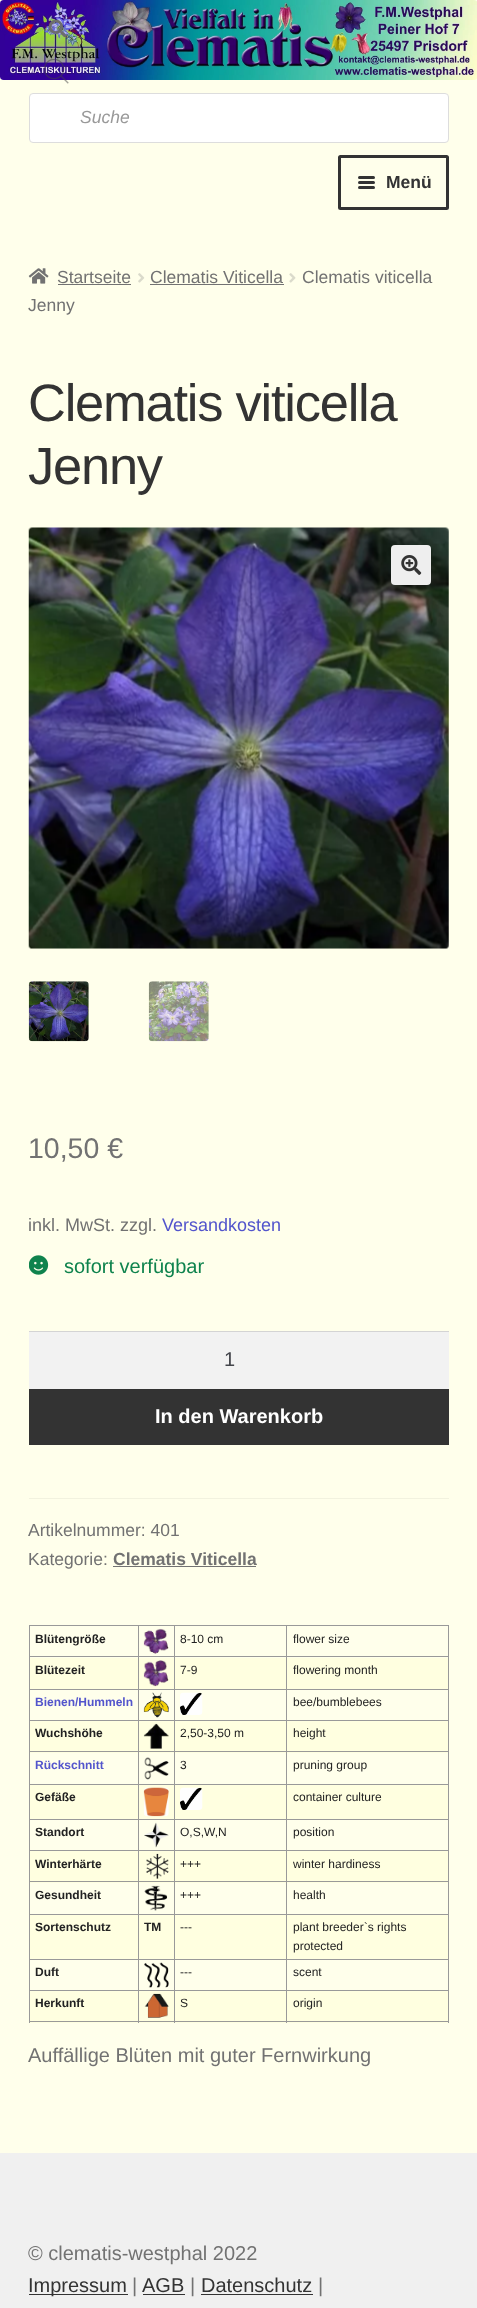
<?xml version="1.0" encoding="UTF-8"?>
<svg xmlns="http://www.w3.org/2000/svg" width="477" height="2308">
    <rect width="100%" height="100%" fill="#FFFFEB"/>
    <image x="0" y="0" width="477" height="80" href="img_01.png"/>
    <image x="48" y="19" width="18" height="19" href="img_02.png"/>
    <image x="44" y="59" width="25" height="25" href="img_03.png"/>
    <rect x="29.5" y="93.5" width="419" height="49" rx="3.5" fill="#FFFFFF" stroke="#DDDDDD"/>
    <text x="80" y="123" font-family="Liberation Sans" font-size="17.5" font-style="italic" fill="#999999">Suche</text>
    <rect x="339.5" y="156.5" width="108" height="52" rx="1" fill="none" stroke="#333333" stroke-width="3"/>
    <rect x="358" y="176" width="17" height="3" rx="1.5" fill="#333333"/>
    <rect x="358" y="181" width="17" height="3" rx="1.5" fill="#333333"/>
    <text x="386" y="188" font-family="Liberation Sans" font-size="17.5" font-weight="700" fill="#333333">Menü</text>
    <rect x="358" y="186" width="17" height="3" rx="1.5" fill="#333333"/>
    <image x="28" y="268" width="21" height="16" href="img_04.png"/>
    <text x="57" y="283" font-family="Liberation Sans" font-size="17.5" fill="#727272">Startseite</text>
    <rect x="58" y="284" width="73" height="1" fill="#727272"/>
    <image x="138" y="273" width="7" height="10" href="img_05.png"/>
    <text x="150" y="283" font-family="Liberation Sans" font-size="17.5" fill="#727272">Clematis Viticella</text>
    <rect x="150" y="284" width="134" height="1" fill="#727272"/>
    <image x="289" y="273" width="7" height="10" href="img_06.png"/>
    <text x="302" y="283" font-family="Liberation Sans" font-size="17.5" fill="#727272">Clematis viticella</text>
    <text x="28" y="311" font-family="Liberation Sans" font-size="17.5" fill="#727272">Jenny</text>
    <text font-family="Liberation Sans" font-size="52.5" letter-spacing="-1.25" fill="#333333">
        <tspan x="28" y="421">Clematis viticella</tspan>
        <tspan x="28" y="484">Jenny</tspan>
    </text>
    <image x="28" y="527" width="421" height="422" href="img_07.png"/>
    <rect x="391" y="545" width="40" height="40" rx="4" fill="#EEEEEE"/>
    <image x="401" y="555" width="21" height="20" href="img_08.png"/>
    <image x="28" y="981" width="61" height="61" href="img_09.png"/>
    <image x="148" y="981" width="61" height="61" href="img_10.png"/>
    <text x="28" y="1158" font-family="Liberation Sans" font-size="28.5" fill="#727272">10,50 €</text>
    <text x="28" y="1231" font-family="Liberation Sans" font-size="18" fill="#727272">inkl. MwSt. zzgl.</text>
    <text x="162" y="1231" font-family="Liberation Sans" font-size="18" fill="#5355CC">Versandkosten</text>
    <image x="29" y="1255" width="20" height="20" href="img_11.png"/>
    <text x="64" y="1273" font-family="Liberation Sans" font-size="20" fill="#0F834D">sofort verfügbar</text>
    <rect x="29" y="1332" width="420" height="57" fill="#F2F2F2"/>
    <rect x="29" y="1331" width="420" height="1" fill="#D4D4D4"/>
    <text x="224" y="1366" font-family="Liberation Sans" font-size="20" fill="#43454B">1</text>
    <rect x="29" y="1389" width="420" height="56" fill="#333333"/>
    <text x="155" y="1423" font-family="Liberation Sans" font-size="20" font-weight="700" fill="#FFFFFF">In den Warenkorb</text>
    <rect x="29" y="1498" width="420" height="1" fill="#F2F2DF"/>
    <text font-family="Liberation Sans" font-size="17.5" fill="#727272">
        <tspan x="28" y="1536">Artikelnummer: 401</tspan>
        <tspan x="28" y="1565">Kategorie:</tspan>
    </text>
    <text x="113" y="1565" font-family="Liberation Sans" font-size="17.5" font-weight="700" fill="#727272">Clematis Viticella</text>
    <rect x="113" y="1566" width="143" height="1" fill="#727272"/>
    <rect x="286" y="1625" width="163" height="1" fill="#999999"/>
    <rect x="286" y="1656" width="163" height="1" fill="#999999"/>
    <rect x="175" y="1658" width="273" height="31" fill="#FFFFE0"/>
    <rect x="286" y="1689" width="163" height="1" fill="#999999"/>
    <rect x="286" y="1720" width="163" height="1" fill="#999999"/>
    <rect x="175" y="1721" width="273" height="32" fill="#FFFFE0"/>
    <rect x="286" y="1751" width="163" height="1" fill="#999999"/>
    <rect x="286" y="1784" width="163" height="1" fill="#999999"/>
    <rect x="175" y="1785" width="273" height="34" fill="#FFFFE0"/>
    <rect x="286" y="1819" width="163" height="1" fill="#999999"/>
    <rect x="286" y="1850" width="163" height="1" fill="#999999"/>
    <rect x="175" y="1851" width="273" height="32" fill="#FFFFE0"/>
    <rect x="286" y="1881" width="163" height="1" fill="#999999"/>
    <rect x="286" y="1914" width="163" height="1" fill="#999999"/>
    <rect x="175" y="1915" width="273" height="44" fill="#FFFFE0"/>
    <rect x="286" y="1959" width="163" height="1" fill="#999999"/>
    <rect x="286" y="1990" width="163" height="1" fill="#999999"/>
    <rect x="175" y="1991" width="273" height="32" fill="#FFFFE0"/>
    <rect x="448" y="1990" width="1" height="33" fill="#999999"/>
    <rect x="286" y="2021" width="163" height="1" fill="#999999"/>
    <rect x="286" y="1990" width="1" height="33" fill="#999999"/>
    <rect x="174" y="1990" width="114" height="1" fill="#999999"/>
    <rect x="286" y="1959" width="1" height="32" fill="#999999"/>
    <rect x="174" y="1959" width="114" height="1" fill="#999999"/>
    <rect x="286" y="1914" width="1" height="46" fill="#999999"/>
    <rect x="174" y="1914" width="114" height="1" fill="#999999"/>
    <rect x="286" y="1881" width="1" height="34" fill="#999999"/>
    <rect x="174" y="1881" width="114" height="1" fill="#999999"/>
    <rect x="286" y="1850" width="1" height="33" fill="#999999"/>
    <rect x="174" y="1850" width="114" height="1" fill="#999999"/>
    <rect x="286" y="1819" width="1" height="32" fill="#999999"/>
    <rect x="174" y="1819" width="114" height="1" fill="#999999"/>
    <rect x="286" y="1784" width="1" height="36" fill="#999999"/>
    <rect x="174" y="1784" width="114" height="1" fill="#999999"/>
    <rect x="286" y="1751" width="1" height="34" fill="#999999"/>
    <rect x="174" y="1751" width="114" height="1" fill="#999999"/>
    <rect x="286" y="1720" width="1" height="33" fill="#999999"/>
    <rect x="174" y="1720" width="114" height="1" fill="#999999"/>
    <rect x="286" y="1689" width="1" height="32" fill="#999999"/>
    <rect x="174" y="1689" width="114" height="1" fill="#999999"/>
    <rect x="286" y="1656" width="1" height="34" fill="#999999"/>
    <rect x="174" y="1656" width="114" height="1" fill="#999999"/>
    <rect x="286" y="1625" width="1" height="33" fill="#999999"/>
    <rect x="174" y="1625" width="114" height="1" fill="#999999"/>
    <rect x="139" y="1721" width="35" height="32" fill="#FFFFE0"/>
    <rect x="139" y="1851" width="35" height="32" fill="#FFFFE0"/>
    <rect x="174" y="2021" width="114" height="1" fill="#999999"/>
    <rect x="174" y="1990" width="1" height="33" fill="#999999"/>
    <rect x="138" y="1990" width="37" height="1" fill="#999999"/>
    <rect x="174" y="1959" width="1" height="32" fill="#999999"/>
    <rect x="138" y="1959" width="37" height="1" fill="#999999"/>
    <rect x="174" y="1914" width="1" height="46" fill="#999999"/>
    <rect x="138" y="1914" width="37" height="1" fill="#999999"/>
    <rect x="174" y="1881" width="1" height="34" fill="#999999"/>
    <rect x="138" y="1881" width="37" height="1" fill="#999999"/>
    <rect x="174" y="1850" width="1" height="33" fill="#999999"/>
    <rect x="138" y="1850" width="37" height="1" fill="#999999"/>
    <rect x="174" y="1819" width="1" height="32" fill="#999999"/>
    <rect x="138" y="1819" width="37" height="1" fill="#999999"/>
    <rect x="174" y="1784" width="1" height="36" fill="#999999"/>
    <rect x="138" y="1784" width="37" height="1" fill="#999999"/>
    <rect x="174" y="1751" width="1" height="34" fill="#999999"/>
    <rect x="138" y="1751" width="37" height="1" fill="#999999"/>
    <rect x="174" y="1720" width="1" height="33" fill="#999999"/>
    <rect x="138" y="1720" width="37" height="1" fill="#999999"/>
    <rect x="174" y="1689" width="1" height="32" fill="#999999"/>
    <rect x="138" y="1689" width="37" height="1" fill="#999999"/>
    <rect x="174" y="1656" width="1" height="34" fill="#999999"/>
    <rect x="138" y="1656" width="37" height="1" fill="#999999"/>
    <rect x="174" y="1625" width="1" height="33" fill="#999999"/>
    <rect x="138" y="1625" width="37" height="1" fill="#999999"/>
    <rect x="30" y="1721" width="108" height="32" fill="#FFFFE0"/>
    <rect x="30" y="1851" width="108" height="32" fill="#FFFFE0"/>
    <rect x="139" y="1991" width="35" height="32" fill="#FFFFE0"/>
    <rect x="138" y="2021" width="37" height="1" fill="#999999"/>
    <rect x="138" y="1990" width="1" height="33" fill="#999999"/>
    <rect x="29" y="1990" width="110" height="1" fill="#999999"/>
    <rect x="138" y="1959" width="1" height="32" fill="#999999"/>
    <rect x="29" y="1959" width="110" height="1" fill="#999999"/>
    <rect x="138" y="1914" width="1" height="46" fill="#999999"/>
    <rect x="29" y="1914" width="110" height="1" fill="#999999"/>
    <rect x="138" y="1881" width="1" height="34" fill="#999999"/>
    <rect x="29" y="1881" width="110" height="1" fill="#999999"/>
    <rect x="138" y="1850" width="1" height="33" fill="#999999"/>
    <rect x="29" y="1850" width="110" height="1" fill="#999999"/>
    <rect x="138" y="1819" width="1" height="32" fill="#999999"/>
    <rect x="29" y="1819" width="110" height="1" fill="#999999"/>
    <rect x="138" y="1784" width="1" height="36" fill="#999999"/>
    <rect x="29" y="1784" width="110" height="1" fill="#999999"/>
    <rect x="138" y="1751" width="1" height="34" fill="#999999"/>
    <rect x="29" y="1751" width="110" height="1" fill="#999999"/>
    <rect x="138" y="1720" width="1" height="33" fill="#999999"/>
    <rect x="29" y="1720" width="110" height="1" fill="#999999"/>
    <rect x="138" y="1689" width="1" height="32" fill="#999999"/>
    <rect x="29" y="1689" width="110" height="1" fill="#999999"/>
    <rect x="138" y="1656" width="1" height="34" fill="#999999"/>
    <rect x="29" y="1656" width="110" height="1" fill="#999999"/>
    <rect x="138" y="1625" width="1" height="33" fill="#999999"/>
    <rect x="29" y="1625" width="110" height="1" fill="#999999"/>
    <rect x="30" y="1991" width="108" height="32" fill="#FFFFE0"/>
    <rect x="29" y="2021" width="110" height="1" fill="#999999"/>
    <rect x="29" y="1990" width="1" height="33" fill="#999999"/>
    <rect x="29" y="1959" width="1" height="32" fill="#999999"/>
    <rect x="29" y="1914" width="1" height="46" fill="#999999"/>
    <rect x="29" y="1881" width="1" height="34" fill="#999999"/>
    <rect x="29" y="1850" width="1" height="33" fill="#999999"/>
    <rect x="29" y="1819" width="1" height="32" fill="#999999"/>
    <rect x="29" y="1784" width="1" height="36" fill="#999999"/>
    <rect x="29" y="1751" width="1" height="34" fill="#999999"/>
    <rect x="29" y="1720" width="1" height="33" fill="#999999"/>
    <rect x="29" y="1689" width="1" height="32" fill="#999999"/>
    <rect x="29" y="1656" width="1" height="34" fill="#999999"/>
    <rect x="29" y="1625" width="1" height="33" fill="#999999"/>
    <text x="35" y="1643" font-family="Liberation Sans" font-size="12" font-weight="700" fill="#222222">Blütengröße</text>
    <image x="143" y="1628" width="26" height="26" href="img_12.png"/>
    <text x="180" y="1643" font-family="Liberation Sans" font-size="12" fill="#222222">8-10 cm</text>
    <rect x="448" y="1959" width="1" height="32" fill="#999999"/>
    <rect x="448" y="1914" width="1" height="46" fill="#999999"/>
    <rect x="448" y="1881" width="1" height="34" fill="#999999"/>
    <rect x="448" y="1850" width="1" height="33" fill="#999999"/>
    <rect x="448" y="1819" width="1" height="32" fill="#999999"/>
    <rect x="448" y="1784" width="1" height="36" fill="#999999"/>
    <rect x="448" y="1751" width="1" height="34" fill="#999999"/>
    <rect x="448" y="1720" width="1" height="33" fill="#999999"/>
    <rect x="448" y="1689" width="1" height="32" fill="#999999"/>
    <rect x="448" y="1656" width="1" height="34" fill="#999999"/>
    <rect x="448" y="1625" width="1" height="33" fill="#999999"/>
    <text x="293" y="1643" font-family="Liberation Sans" font-size="12" fill="#222222">flower size</text>
    <rect x="30" y="1658" width="108" height="31" fill="#FFFFE0"/>
    <text x="35" y="1674" font-family="Liberation Sans" font-size="12" font-weight="700" fill="#222222">Blütezeit</text>
    <rect x="139" y="1658" width="35" height="31" fill="#FFFFE0"/>
    <image x="143" y="1660" width="26" height="27" href="img_13.png"/>
    <text x="180" y="1674" font-family="Liberation Sans" font-size="12" fill="#222222">7-9</text>
    <text x="293" y="1674" font-family="Liberation Sans" font-size="12" fill="#222222">flowering month</text>
    <text x="35" y="1706" font-family="Liberation Sans" font-size="12" font-weight="700" fill="#5355CC">Bienen/Hummeln</text>
    <image x="143" y="1692" width="26" height="26" href="img_14.png"/>
    <image x="180" y="1692" width="23" height="23" href="img_15.png"/>
    <text x="293" y="1706" font-family="Liberation Sans" font-size="12" fill="#222222">bee/bumblebees</text>
    <text x="35" y="1737" font-family="Liberation Sans" font-size="12" font-weight="700" fill="#222222">Wuchshöhe</text>
    <image x="143" y="1723" width="26" height="26" href="img_16.png"/>
    <text x="180" y="1737" font-family="Liberation Sans" font-size="12" fill="#222222">2,50-3,50 m</text>
    <text x="293" y="1737" font-family="Liberation Sans" font-size="12" fill="#222222">height</text>
    <text x="35" y="1769" font-family="Liberation Sans" font-size="12" font-weight="700" fill="#5355CC">Rückschnitt</text>
    <image x="144" y="1757" width="25" height="23" href="img_17.png"/>
    <text x="180" y="1769" font-family="Liberation Sans" font-size="12" fill="#222222">3</text>
    <text x="293" y="1769" font-family="Liberation Sans" font-size="12" fill="#222222">pruning group</text>
    <rect x="30" y="1785" width="108" height="34" fill="#FFFFE0"/>
    <text x="35" y="1801" font-family="Liberation Sans" font-size="12" font-weight="700" fill="#222222">Gefäße</text>
    <rect x="139" y="1785" width="35" height="34" fill="#FFFFE0"/>
    <image x="143" y="1787" width="26" height="30" href="img_18.png"/>
    <image x="180" y="1787" width="23" height="23" href="img_19.png"/>
    <text x="293" y="1801" font-family="Liberation Sans" font-size="12" fill="#222222">container culture</text>
    <text x="35" y="1836" font-family="Liberation Sans" font-size="12" font-weight="700" fill="#222222">Standort</text>
    <image x="144" y="1822" width="25" height="26" href="img_20.png"/>
    <text x="180" y="1836" font-family="Liberation Sans" font-size="12" fill="#222222">O,S,W,N</text>
    <text x="293" y="1836" font-family="Liberation Sans" font-size="12" fill="#222222">position</text>
    <text x="35" y="1868" font-family="Liberation Sans" font-size="12" font-weight="700" fill="#222222">Winterhärte</text>
    <image x="146" y="1853" width="23" height="26" href="img_21.png"/>
    <text x="180" y="1868" font-family="Liberation Sans" font-size="12" fill="#222222">+++</text>
    <text x="293" y="1868" font-family="Liberation Sans" font-size="12" fill="#222222">winter hardiness</text>
    <text x="35" y="1899" font-family="Liberation Sans" font-size="12" font-weight="700" fill="#222222">Gesundheit</text>
    <image x="144" y="1885" width="24" height="26" href="img_22.png"/>
    <text x="180" y="1899" font-family="Liberation Sans" font-size="12" fill="#222222">+++</text>
    <text x="293" y="1899" font-family="Liberation Sans" font-size="12" fill="#222222">health</text>
    <rect x="30" y="1915" width="108" height="44" fill="#FFFFE0"/>
    <text x="35" y="1931" font-family="Liberation Sans" font-size="12" font-weight="700" fill="#222222">Sortenschutz</text>
    <rect x="139" y="1915" width="35" height="44" fill="#FFFFE0"/>
    <text x="144" y="1931" font-family="Liberation Sans" font-size="12" font-weight="700" fill="#222222">TM</text>
    <text x="180" y="1931" font-family="Liberation Sans" font-size="12" fill="#222222">---</text>
    <text font-family="Liberation Sans" font-size="12" fill="#222222">
        <tspan x="293" y="1931">plant breeder`s rights</tspan>
        <tspan x="293" y="1950">protected</tspan>
    </text>
    <text x="35" y="1976" font-family="Liberation Sans" font-size="12" font-weight="700" fill="#222222">Duft</text>
    <image x="144" y="1962" width="25" height="26" href="img_23.png"/>
    <text x="180" y="1976" font-family="Liberation Sans" font-size="12" fill="#222222">---</text>
    <text x="293" y="1976" font-family="Liberation Sans" font-size="12" fill="#222222">scent</text>
    <text x="35" y="2007" font-family="Liberation Sans" font-size="12" font-weight="700" fill="#222222">Herkunft</text>
    <image x="144" y="1993" width="25" height="25" href="img_24.png"/>
    <text x="180" y="2007" font-family="Liberation Sans" font-size="12" fill="#222222">S</text>
    <text x="293" y="2007" font-family="Liberation Sans" font-size="12" fill="#222222">origin</text>
    <text x="28" y="2062" font-family="Liberation Sans" font-size="20" fill="#727272">Auffällige Blüten mit guter Fernwirkung</text>
    <rect x="0" y="2153" width="477" height="155" fill="#F0F0F0"/>
    <text x="28" y="2260" font-family="Liberation Sans" font-size="20" fill="#727272">© clematis-westphal 2022</text>
    <rect x="29" y="2294" width="99" height="1" fill="#333333"/>
    <text x="28" y="2292" font-family="Liberation Sans" font-size="20" fill="#333333">Impressum</text>
    <text x="132" y="2292" font-family="Liberation Sans" font-size="20" fill="#727272">|</text>
    <text x="142" y="2292" font-family="Liberation Sans" font-size="20" fill="#333333">AGB</text>
    <rect x="143" y="2294" width="42" height="1" fill="#333333"/>
    <text x="190" y="2292" font-family="Liberation Sans" font-size="20" fill="#727272">|</text>
    <text x="201" y="2292" font-family="Liberation Sans" font-size="20" fill="#333333">Datenschutz</text>
    <rect x="201" y="2294" width="112" height="1" fill="#333333"/>
    <text x="318" y="2292" font-family="Liberation Sans" font-size="20" fill="#727272">|</text>
</svg>
